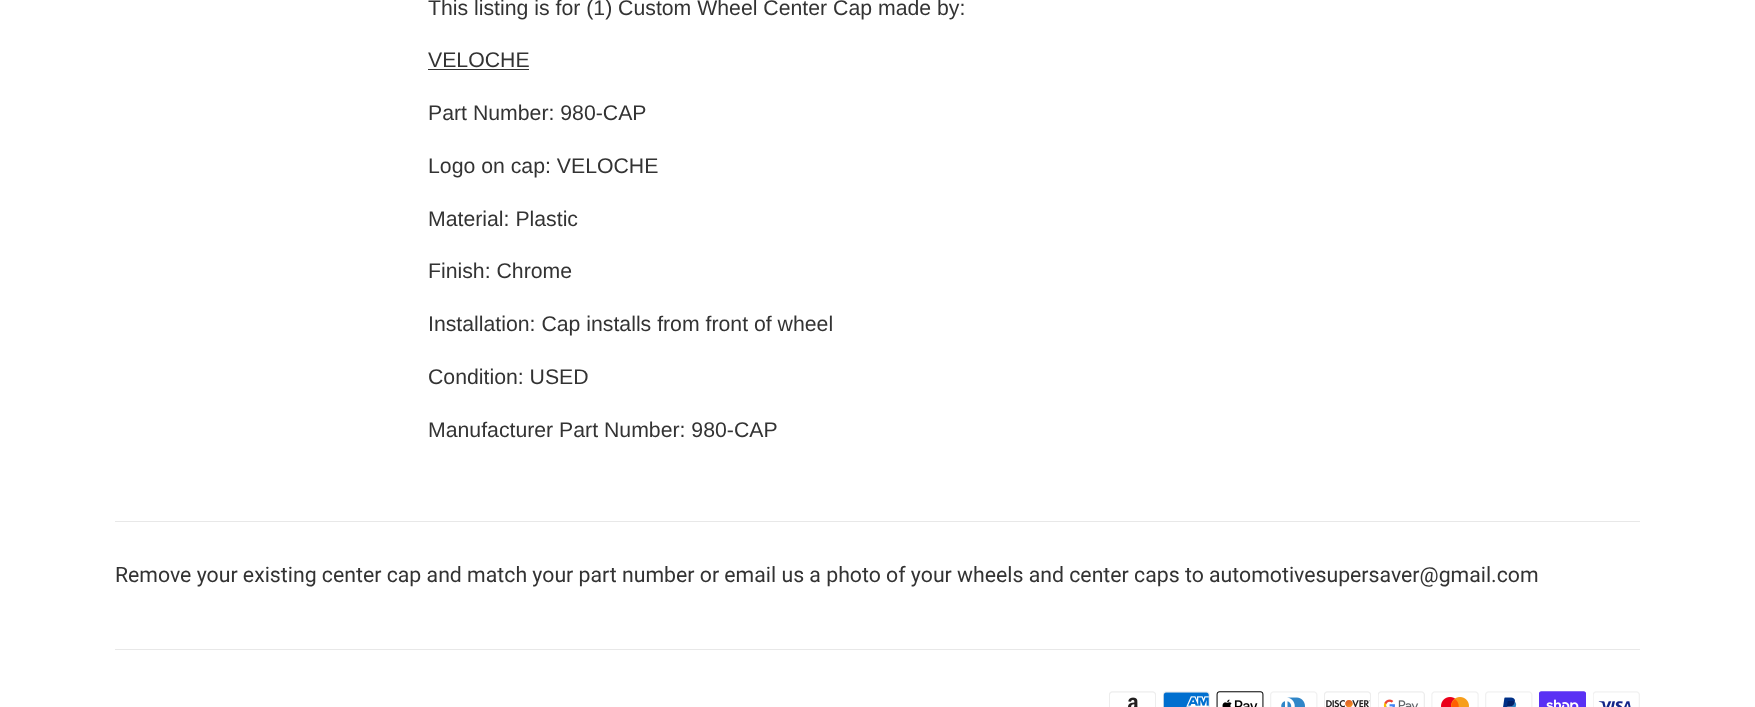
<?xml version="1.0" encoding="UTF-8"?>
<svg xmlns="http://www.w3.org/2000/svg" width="1755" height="707">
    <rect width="100%" height="100%" fill="#FFFFFF"/>
    <text x="428" y="15" font-family="Liberation Sans" font-size="21.25" fill="#333333">This listing is for (1) Custom Wheel Center Cap made by:</text>
    <text x="428" y="67" font-family="Liberation Sans" font-size="21.25" fill="#333333">VELOCHE</text>
    <rect x="428" y="69" width="101" height="1" fill="#333333"/>
    <text x="428" y="120" font-family="Liberation Sans" font-size="21.25" fill="#333333">Part Number: 980-CAP</text>
    <text x="428" y="173" font-family="Liberation Sans" font-size="21.25" fill="#333333">Logo on cap: VELOCHE</text>
    <text x="428" y="226" font-family="Liberation Sans" font-size="21.25" fill="#333333">Material: Plastic</text>
    <text x="428" y="278" font-family="Liberation Sans" font-size="21.25" fill="#333333">Finish: Chrome</text>
    <text x="428" y="331" font-family="Liberation Sans" font-size="21.25" fill="#333333">Installation: Cap installs from front of wheel</text>
    <text x="428" y="384" font-family="Liberation Sans" font-size="21.25" fill="#333333">Condition: USED</text>
    <text x="428" y="437" font-family="Liberation Sans" font-size="21.25" fill="#333333">Manufacturer Part Number: 980-CAP</text>
    <rect x="115" y="521" width="1525" height="1" fill="#E8E8E8"/>
    <text x="115" y="582" font-family="Roboto" font-size="21.25" fill="#333333">Remove your existing center cap and match your part number or email us a photo of your wheels and center caps to automotivesupersaver@gmail.com</text>
    <rect x="115" y="649" width="1525" height="1" fill="#E8E8E8"/>
    <image x="1109" y="691" width="47" height="16" href="img_01.png"/>
    <image x="1163" y="691" width="47" height="16" href="img_02.png"/>
    <image x="1216" y="691" width="48" height="16" href="img_03.png"/>
    <image x="1270" y="691" width="48" height="16" href="img_04.png"/>
    <image x="1324" y="691" width="47" height="16" href="img_05.png"/>
    <image x="1378" y="691" width="47" height="16" href="img_06.png"/>
    <image x="1431" y="691" width="48" height="16" href="img_07.png"/>
    <image x="1485" y="691" width="48" height="16" href="img_08.png"/>
    <image x="1539" y="691" width="47" height="16" href="img_09.png"/>
    <image x="1593" y="691" width="47" height="16" href="img_10.png"/>
</svg>
